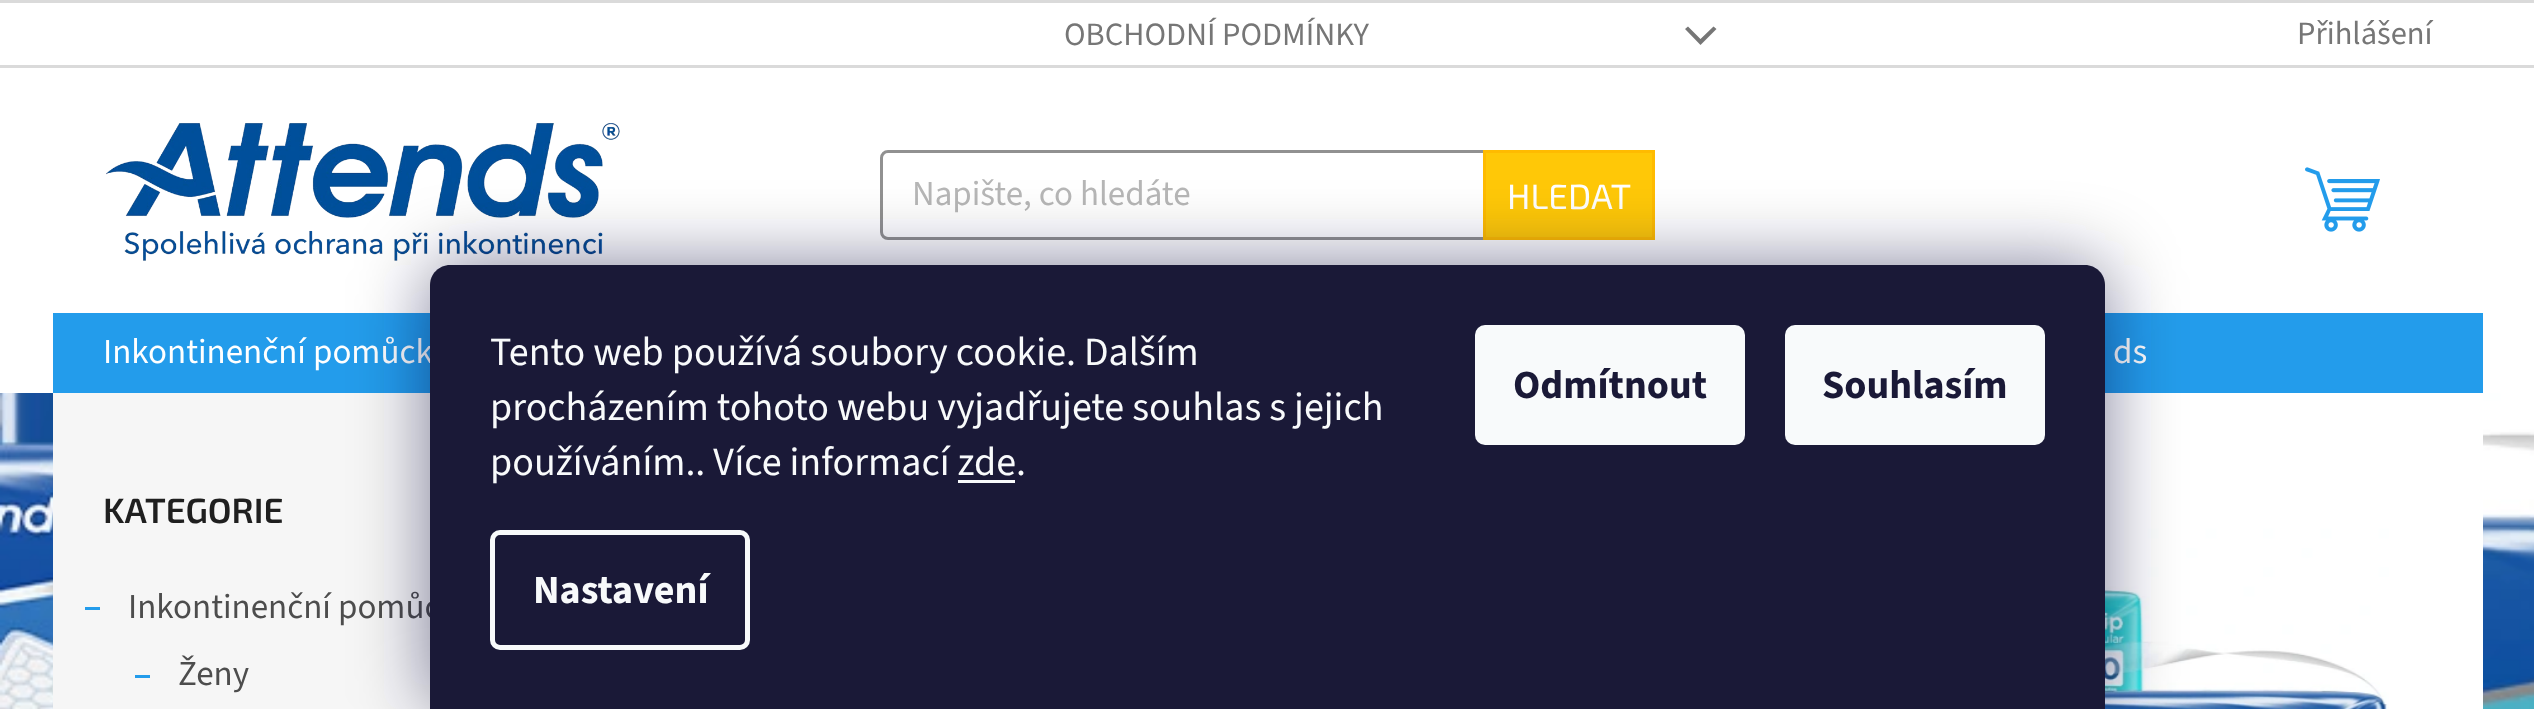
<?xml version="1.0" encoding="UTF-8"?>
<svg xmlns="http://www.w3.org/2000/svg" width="2534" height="709">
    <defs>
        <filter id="blur1" x="-50%" y="-200%" width="200%" height="500%"><feGaussianBlur stdDeviation="37.5"/></filter>
    </defs>
    <rect width="100%" height="100%" fill="#FFFFFF"/>
    <image x="0" y="393" width="2534" height="316" href="img_01.png"/>
    <rect x="0" y="0" width="2534" height="3" fill="#DADADA"/>
    <rect x="0" y="65" width="2534" height="3" fill="#DADADA"/>
    <text x="1064" y="45" font-family="'Source Sans 3'" font-size="32.5" fill="#767676">OBCHODNÍ PODMÍNKY</text>
    <path d="M 1685 29 L 1688 26.5 L 1700.5 39 L 1713.5 26.5 L 1716.5 29 L 1700.5 45 Z" fill="#767676"/>
    <text x="2297" y="44" font-family="'Source Sans 3'" font-size="32.5" fill="#767676">Přihlášení</text>
    <image x="106" y="123" width="514" height="138" href="img_02.png"/>
    <rect x="881.5" y="151.5" width="772" height="87" rx="6.5" fill="none" stroke="#919191" stroke-width="3"/>
    <text x="912" y="205" font-family="'Source Sans 3'" font-size="35" fill="#B6B6B6">Napište, co hledáte</text>
    <rect x="1484.5" y="151.5" width="169" height="87" fill="#FFC807" stroke="#FFBB00" stroke-width="3"/>
    <text x="1507" y="209" font-family="'Exo 2'" font-size="35" fill="#FFFFFF">HLEDAT</text>
    <image x="2305" y="167" width="75" height="65" href="img_03.png"/>
    <rect x="53" y="313" width="2430" height="80" fill="#239CEB"/>
    <text x="103" y="363" font-family="'Source Sans 3'" font-size="35" fill="#FFFFFF">Inkontinenční pomůck</text>
    <text x="2113" y="363" font-family="'Source Sans 3'" font-size="35" fill="#FFFFFF">ds</text>
    <rect x="2105" y="393" width="378" height="316" fill="#FFFFFF"/>
    <rect x="53" y="393" width="377" height="316" fill="#F6F6F6"/>
    <text x="103" y="523" font-family="'Exo 2'" font-size="35" font-weight="600" fill="#1F1F1F">KATEGORIE</text>
    <rect x="85" y="607" width="15" height="3" fill="#239CEB"/>
    <text x="128" y="618" font-family="'Source Sans 3'" font-size="35" fill="#4D4D4D">Inkontinenční pomůc</text>
    <rect x="135" y="675" width="15" height="3" fill="#239CEB"/>
    <text x="178" y="685" font-family="'Source Sans 3'" font-size="35" fill="#4D4D4D">Ženy</text>
    <image x="2105" y="491" width="284" height="218" href="img_04.png"/>
    <rect x="430" y="265" width="1675" height="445" rx="20" fill="#1B1939" fill-opacity="0.5" filter="url(#blur1)"/>
    <path d="M 450 265 H 2085 C 2096 265 2105 274 2105 285 V 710 H 430 V 285 C 430 274 439 265 450 265 Z" fill="#1A1937"/>
    <text font-family="'Source Sans 3'" font-size="40" fill="#F8FAFB">
        <tspan x="490" y="365">Tento web používá soubory cookie. Dalším</tspan>
        <tspan x="490" y="420">procházením tohoto webu vyjadřujete souhlas s jejich</tspan>
        <tspan x="490" y="475">používáním.. Více informací zde.</tspan>
    </text>
    <rect x="958" y="480" width="57" height="3" fill="#F8FAFB"/>
    <rect x="492.5" y="532.5" width="255" height="115" rx="7.5" fill="none" stroke="#F8FAFB" stroke-width="5"/>
    <text x="533" y="603" font-family="'Source Sans 3'" font-size="40" font-weight="700" fill="#F8FAFB">Nastavení</text>
    <rect x="1475" y="325" width="270" height="120" rx="10" fill="#F8FAFB"/>
    <text x="1513" y="398" font-family="'Source Sans 3'" font-size="40" font-weight="700" fill="#1A1937">Odmítnout</text>
    <rect x="1785" y="325" width="260" height="120" rx="10" fill="#F8FAFB"/>
    <text x="1822" y="398" font-family="'Source Sans 3'" font-size="40" font-weight="700" fill="#1A1937">Souhlasím</text>
</svg>
